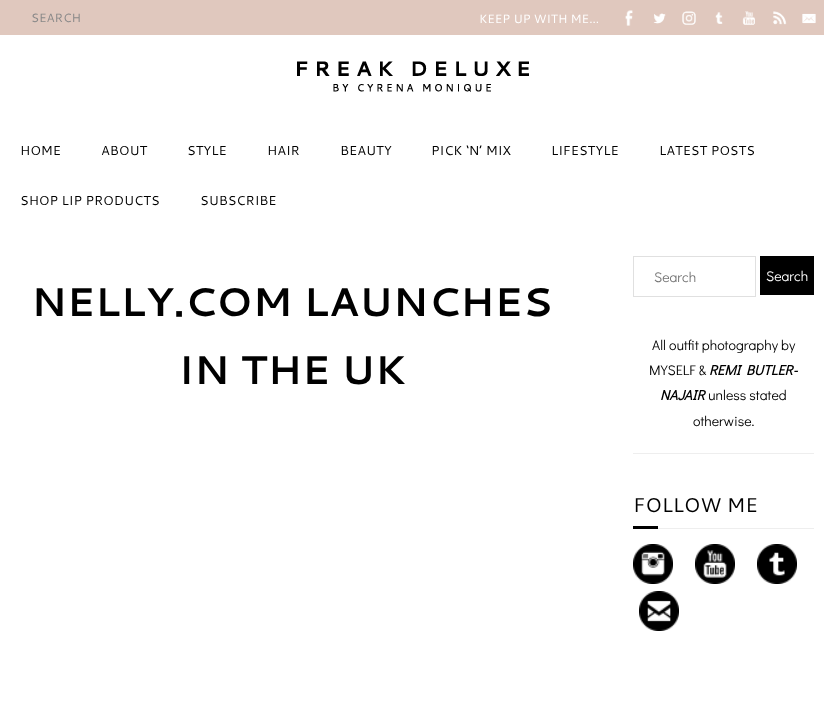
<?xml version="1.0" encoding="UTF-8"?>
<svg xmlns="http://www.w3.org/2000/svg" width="824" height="704">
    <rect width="100%" height="100%" fill="#FFFFFF"/>
    <rect x="0" y="0" width="824" height="35" fill="#E0C8BE"/>
    <text x="31" y="22" font-family="Cantarell" font-size="12" fill="#888888">SEARCH</text>
    <text x="479" y="23" font-family="Cantarell" font-size="12" fill="#FFFFFF">KEEP UP WITH ME...</text>
    <image x="625" y="10" width="8" height="16" href="img_01.png"/>
    <image x="653" y="13" width="13" height="11" href="img_02.png"/>
    <image x="682" y="11" width="14" height="14" href="img_03.png"/>
    <image x="715" y="12" width="8" height="12" href="img_04.png"/>
    <image x="742" y="11" width="13" height="14" href="img_05.png"/>
    <image x="773" y="11" width="14" height="14" href="img_06.png"/>
    <image x="802" y="13" width="14" height="11" href="img_07.png"/>
    <image x="297" y="61" width="232" height="31" href="img_08.png"/>
    <text x="20" y="155" font-family="Cantarell" font-size="13" fill="#000000">HOME</text>
    <text x="101" y="155" font-family="Cantarell" font-size="13" fill="#000000">ABOUT</text>
    <text x="187" y="155" font-family="Cantarell" font-size="13" fill="#000000">STYLE</text>
    <text x="267" y="155" font-family="Cantarell" font-size="13" fill="#000000">HAIR</text>
    <text x="340" y="155" font-family="Cantarell" font-size="13" fill="#000000">BEAUTY</text>
    <text x="431" y="155" font-family="Cantarell" font-size="13" fill="#000000">PICK ‘N’ MIX</text>
    <text x="551" y="155" font-family="Cantarell" font-size="13" fill="#000000">LIFESTYLE</text>
    <text x="659" y="155" font-family="Cantarell" font-size="13" fill="#000000">LATEST POSTS</text>
    <text x="20" y="205" font-family="Cantarell" font-size="13" fill="#000000">SHOP LIP PRODUCTS</text>
    <text x="200" y="205" font-family="Cantarell" font-size="13" fill="#000000">SUBSCRIBE</text>
    <text x="31" y="316" font-family="Cantarell" font-size="40" font-weight="700" fill="#000000">NELLY.COM LAUNCHES</text>
    <text x="178" y="384" font-family="Cantarell" font-size="40" font-weight="700" fill="#000000">IN THE UK</text>
    <rect x="633.5" y="256.5" width="122" height="40" fill="none" stroke="#E0E0E0"/>
    <text x="654" y="282" font-family="Didact Gothic" font-size="14" fill="#757575">Search</text>
    <rect x="760" y="256" width="54" height="39" fill="#000000"/>
    <text x="766" y="281" font-family="Didact Gothic" font-size="14" fill="#FFFFFF">Search</text>
    <rect x="633" y="453" width="181" height="1" fill="#EEEEEE"/>
    <text x="652" y="350" font-family="Didact Gothic" font-size="14" fill="#000000">All outfit photography by</text>
    <text x="649" y="375" font-family="Didact Gothic" font-size="14" fill="#000000">MYSELF &amp;</text>
    <text x="709" y="375" font-family="Didact Gothic" font-size="14" font-weight="700" font-style="italic" fill="#000000">REMI BUTLER-</text>
    <text x="660" y="400" font-family="Didact Gothic" font-size="14" font-weight="700" font-style="italic" fill="#000000">NAJAIR</text>
    <text x="708" y="400" font-family="Didact Gothic" font-size="14" fill="#000000">unless stated</text>
    <text x="693" y="426" font-family="Didact Gothic" font-size="14" fill="#000000">otherwise.</text>
    <text x="633" y="512" font-family="Cantarell" font-size="20" fill="#000000">FOLLOW ME</text>
    <rect x="633" y="526" width="25" height="3" fill="#000000"/>
    <rect x="658" y="528" width="156" height="1" fill="#EEEEEE"/>
    <image x="633" y="544" width="40" height="40" href="img_09.png"/>
    <image x="695" y="544" width="40" height="40" href="img_10.png"/>
    <image x="757" y="544" width="40" height="40" href="img_11.png"/>
    <image x="639" y="591" width="40" height="40" href="img_12.png"/>
</svg>
